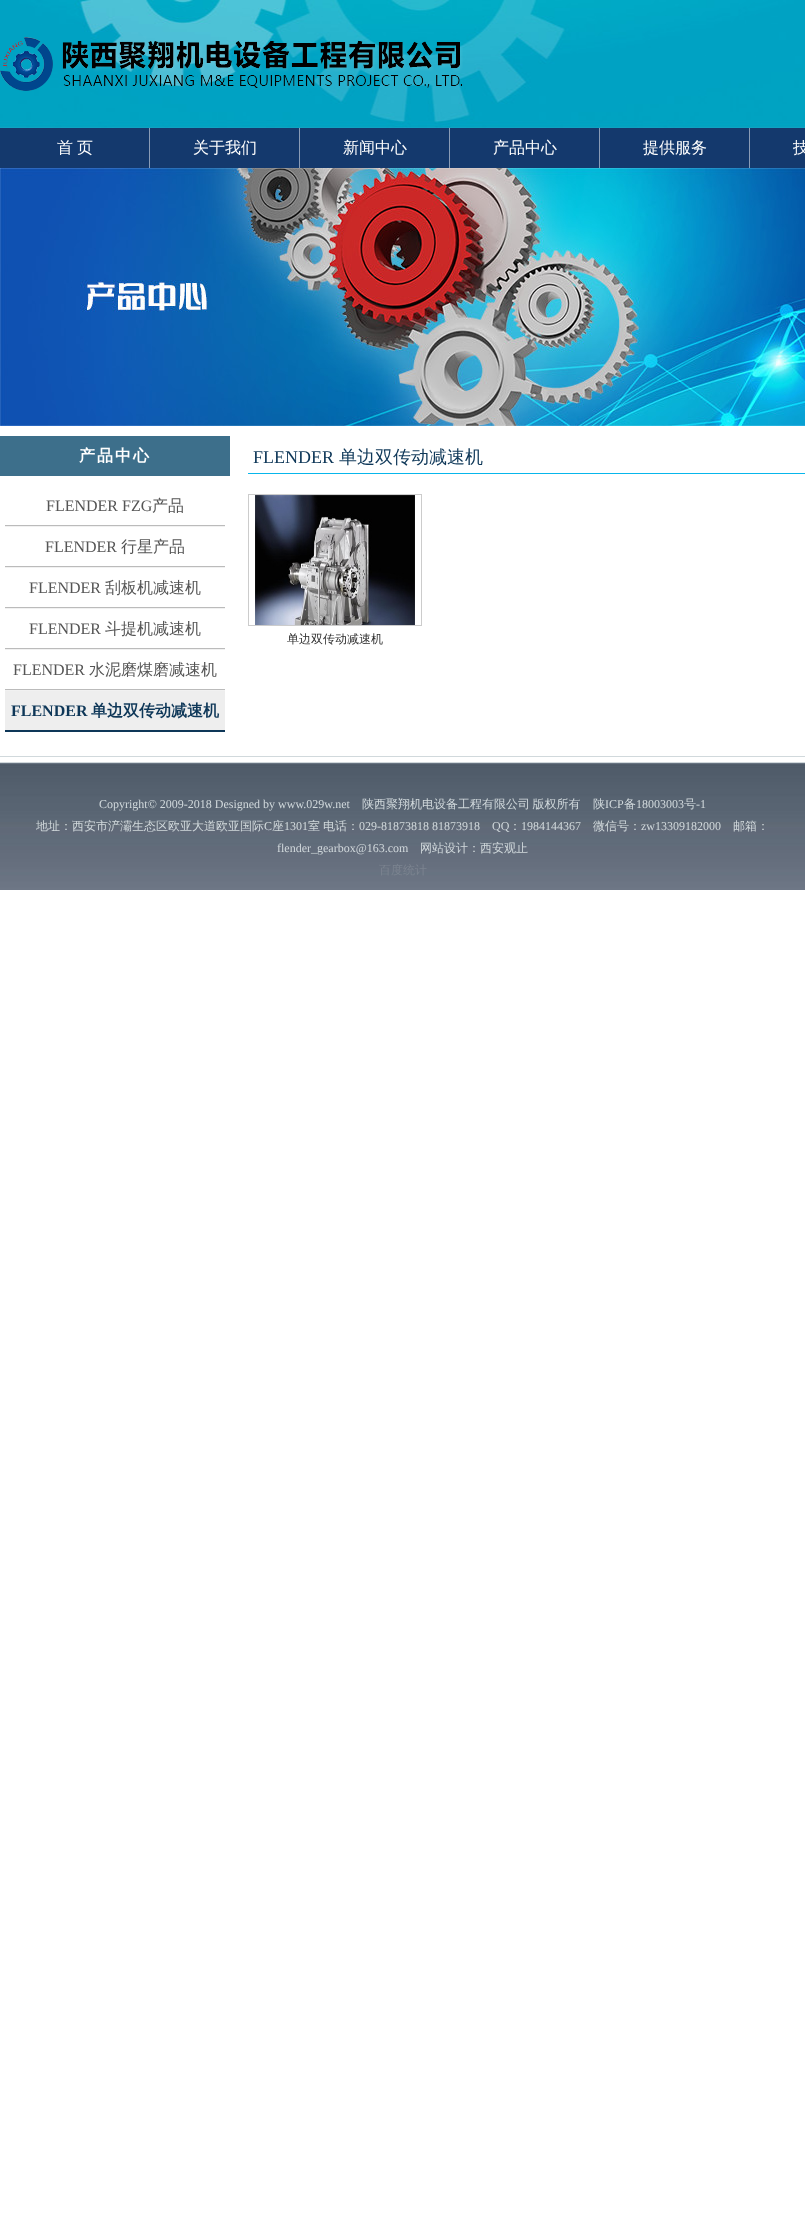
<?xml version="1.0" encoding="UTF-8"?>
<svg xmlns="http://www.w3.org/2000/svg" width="805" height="2218">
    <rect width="100%" height="100%" fill="#FFFFFF"/>
    <image x="0" y="0" width="805" height="128" href="img_01.png"/>
    <image x="0" y="37" width="463" height="54" href="img_02.png"/>
    <rect x="0" y="128" width="805" height="40" fill="#14396D"/>
    <rect x="149" y="128" width="1" height="40" fill="#8A9CB6"/>
    <text x="57" y="153" font-family="WenQuanYi Zen Hei" font-size="16" font-weight="500" fill="#FFFFFF">首</text>
    <text x="77" y="153" font-family="WenQuanYi Zen Hei" font-size="16" font-weight="500" fill="#FFFFFF">页</text>
    <rect x="299" y="128" width="1" height="40" fill="#8A9CB6"/>
    <text x="193" y="153" font-family="WenQuanYi Zen Hei" font-size="16" font-weight="500" fill="#FFFFFF">关于我们</text>
    <rect x="449" y="128" width="1" height="40" fill="#8A9CB6"/>
    <text x="343" y="153" font-family="WenQuanYi Zen Hei" font-size="16" font-weight="500" fill="#FFFFFF">新闻中心</text>
    <rect x="599" y="128" width="1" height="40" fill="#8A9CB6"/>
    <text x="493" y="153" font-family="WenQuanYi Zen Hei" font-size="16" font-weight="500" fill="#FFFFFF">产品中心</text>
    <rect x="749" y="128" width="1" height="40" fill="#8A9CB6"/>
    <text x="643" y="153" font-family="WenQuanYi Zen Hei" font-size="16" font-weight="500" fill="#FFFFFF">提供服务</text>
    <text x="793" y="153" font-family="WenQuanYi Zen Hei" font-size="16" font-weight="500" fill="#FFFFFF">技</text>
    <image x="0" y="168" width="805" height="258" href="img_03.png"/>
    <rect x="0" y="436" width="230" height="40" fill="#3D6F8B"/>
    <text x="79" y="461" font-family="WenQuanYi Zen Hei" font-size="16" font-weight="700" letter-spacing="2" fill="#FFFFFF">产品中心</text>
    <rect x="5" y="526" width="220" height="1" fill="#F1F1F1"/>
    <rect x="5" y="525" width="220" height="1" fill="#BBBBBB"/>
    <text x="46" y="511" font-family="Liberation Serif" font-size="16" fill="#555555">FLENDER FZG</text>
    <text x="152" y="511" font-family="WenQuanYi Zen Hei" font-size="16" font-weight="500" fill="#555555">产品</text>
    <rect x="5" y="567" width="220" height="1" fill="#F1F1F1"/>
    <rect x="5" y="566" width="220" height="1" fill="#BBBBBB"/>
    <text x="45" y="552" font-family="Liberation Serif" font-size="16" fill="#555555">FLENDER</text>
    <text x="121" y="552" font-family="WenQuanYi Zen Hei" font-size="16" font-weight="500" fill="#555555">行星产品</text>
    <rect x="5" y="608" width="220" height="1" fill="#F1F1F1"/>
    <rect x="5" y="607" width="220" height="1" fill="#BBBBBB"/>
    <text x="29" y="593" font-family="Liberation Serif" font-size="16" fill="#555555">FLENDER</text>
    <text x="105" y="593" font-family="WenQuanYi Zen Hei" font-size="16" font-weight="500" fill="#555555">刮板机减速机</text>
    <rect x="5" y="649" width="220" height="1" fill="#F1F1F1"/>
    <rect x="5" y="648" width="220" height="1" fill="#BBBBBB"/>
    <text x="29" y="634" font-family="Liberation Serif" font-size="16" fill="#555555">FLENDER</text>
    <text x="105" y="634" font-family="WenQuanYi Zen Hei" font-size="16" font-weight="500" fill="#555555">斗提机减速机</text>
    <rect x="5" y="690" width="220" height="1" fill="#F1F1F1"/>
    <rect x="5" y="689" width="220" height="1" fill="#BBBBBB"/>
    <text x="13" y="675" font-family="Liberation Serif" font-size="16" fill="#555555">FLENDER</text>
    <text x="89" y="675" font-family="WenQuanYi Zen Hei" font-size="16" font-weight="500" fill="#555555">水泥磨煤磨减速机</text>
    <rect x="5" y="691" width="220" height="39" fill="#EEEEEE"/>
    <rect x="5" y="730" width="220" height="2" fill="#0E3758"/>
    <text x="11" y="716" font-family="Liberation Serif" font-size="16" font-weight="700" fill="#0E3758">FLENDER</text>
    <text x="91" y="716" font-family="WenQuanYi Zen Hei" font-size="16" font-weight="700" fill="#0E3758">单边双传动减速机</text>
    <rect x="248" y="473" width="557" height="1" fill="#08B6EB"/>
    <text x="253" y="463" font-family="Liberation Serif" font-size="18" fill="#0E3758">FLENDER</text>
    <text x="339" y="463" font-family="WenQuanYi Zen Hei" font-size="18" font-weight="500" fill="#0E3758">单边双传动减速机</text>
    <rect x="248.5" y="494.5" width="173" height="131" fill="none" stroke="#CCCCCC"/>
    <image x="255" y="495" width="160" height="130" href="img_04.png"/>
    <text x="287" y="643" font-family="WenQuanYi Zen Hei" font-size="12" font-weight="500" fill="#303030">单边双传动减速机</text>
    <rect x="0" y="756" width="805" height="1" fill="#D1D9DC"/>
    <image x="0" y="763" width="805" height="127" href="img_05.png"/>
    <rect x="0" y="762" width="805" height="1" fill="#D1D9DC"/>
    <text x="99" y="808" font-family="Liberation Serif" font-size="12" fill="#D1D9DC">Copyright© 2009-2018 Designed by www.029w.net</text>
    <text x="362" y="808" word-spacing="-1" font-family="WenQuanYi Zen Hei" font-size="12" font-weight="500" fill="#D1D9DC">陕西聚翔机电设备工程有限公司 版权所有</text>
    <text x="593" y="808" font-family="WenQuanYi Zen Hei" font-size="12" font-weight="500" fill="#D1D9DC">陕</text>
    <text x="605" y="808" font-family="Liberation Serif" font-size="12" fill="#D1D9DC">ICP</text>
    <text x="624" y="808" font-family="WenQuanYi Zen Hei" font-size="12" font-weight="500" fill="#D1D9DC">备</text>
    <text x="636" y="808" font-family="Liberation Serif" font-size="12" fill="#D1D9DC">18003003</text>
    <text x="684" y="808" font-family="WenQuanYi Zen Hei" font-size="12" font-weight="500" fill="#D1D9DC">号</text>
    <text x="696" y="808" font-family="Liberation Serif" font-size="12" fill="#D1D9DC">-1</text>
    <text x="36" y="830" font-family="WenQuanYi Zen Hei" font-size="12" font-weight="500" fill="#D1D9DC">地址：西安市浐灞生态区欧亚大道欧亚国际</text>
    <text x="264" y="830" font-family="Liberation Serif" font-size="12" fill="#D1D9DC">C</text>
    <text x="272" y="830" font-family="WenQuanYi Zen Hei" font-size="12" font-weight="500" fill="#D1D9DC">座</text>
    <text x="284" y="830" font-family="Liberation Serif" font-size="12" fill="#D1D9DC">1301</text>
    <text x="308" y="830" font-family="WenQuanYi Zen Hei" font-size="12" font-weight="500" fill="#D1D9DC">室</text>
    <text x="323" y="830" font-family="WenQuanYi Zen Hei" font-size="12" font-weight="500" fill="#D1D9DC">电话：</text>
    <text x="359" y="830" font-family="Liberation Serif" font-size="12" fill="#D1D9DC">029-81873818 81873918</text>
    <text x="492" y="830" font-family="Liberation Serif" font-size="12" fill="#D1D9DC">QQ</text>
    <text x="509" y="830" font-family="WenQuanYi Zen Hei" font-size="12" font-weight="500" fill="#D1D9DC">：</text>
    <text x="521" y="830" font-family="Liberation Serif" font-size="12" fill="#D1D9DC">1984144367</text>
    <text x="593" y="830" font-family="WenQuanYi Zen Hei" font-size="12" font-weight="500" fill="#D1D9DC">微信号：</text>
    <text x="641" y="830" font-family="Liberation Serif" font-size="12" fill="#D1D9DC">zw13309182000</text>
    <text x="733" y="830" font-family="WenQuanYi Zen Hei" font-size="12" font-weight="500" fill="#D1D9DC">邮箱：</text>
    <text x="277" y="852" font-family="Liberation Serif" font-size="12" fill="#D1D9DC">flender_gearbox@163.com</text>
    <text x="420" y="852" font-family="WenQuanYi Zen Hei" font-size="12" font-weight="500" fill="#D1D9DC">网站设计：西安观止</text>
    <text x="379" y="874" font-family="WenQuanYi Zen Hei" font-size="12" font-weight="500" fill="#7C8490">百度统计</text>
</svg>
